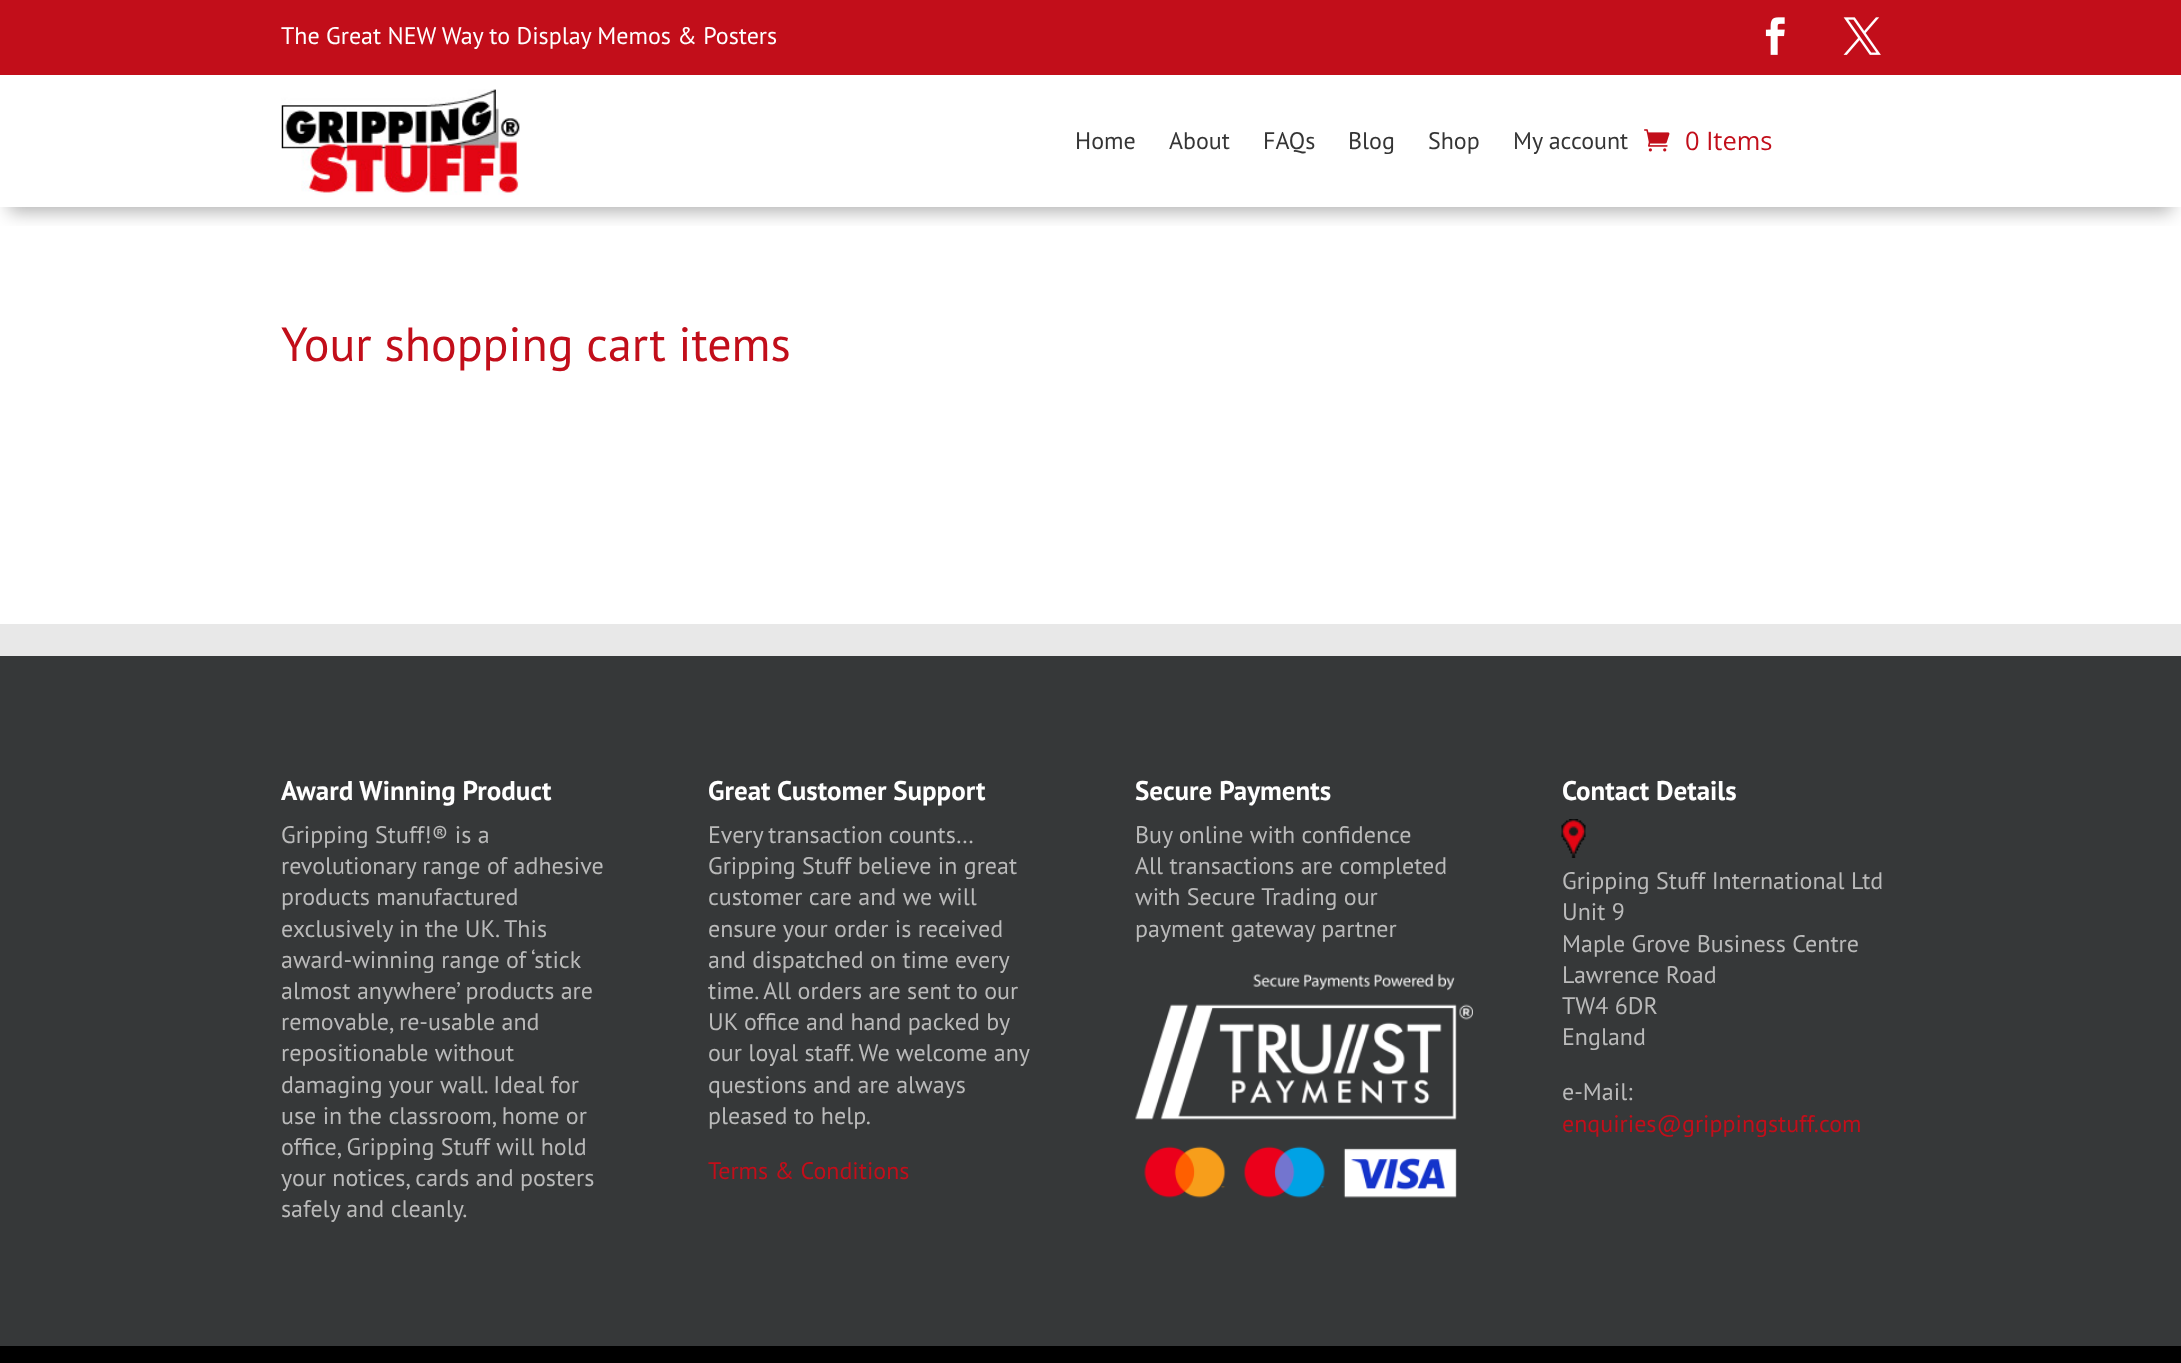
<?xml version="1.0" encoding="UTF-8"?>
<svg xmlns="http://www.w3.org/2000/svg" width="2181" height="1363">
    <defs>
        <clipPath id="clip1"><rect x="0" y="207" width="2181" height="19"/></clipPath>
        <filter id="blur1" x="-50%" y="-200%" width="200%" height="500%"><feGaussianBlur stdDeviation="9"/></filter>
    </defs>
    <rect width="100%" height="100%" fill="#FFFFFF"/>
    <rect x="0" y="0" width="2181" height="75" fill="#C20E1A"/>
    <text x="281" y="44" font-family="PT Sans" font-size="24" fill="#FFFFFF">The Great NEW Way to Display Memos &amp; Posters</text>
    <image x="1765" y="17" width="20" height="38" href="img_01.png"/>
    <image x="1843" y="17" width="38" height="38" href="img_02.png"/>
    <g clip-path="url(#clip1)">
        <rect x="9" y="98" width="2163" height="114" fill="#000000" fill-opacity="0.3" filter="url(#blur1)"/>
    </g>
    <image x="281" y="89" width="239" height="106" href="img_03.png"/>
    <text x="1075" y="149" font-family="PT Sans" font-size="24" fill="#353535">Home</text>
    <text x="1169" y="149" font-family="PT Sans" font-size="24" fill="#353535">About</text>
    <text x="1263" y="149" font-family="PT Sans" font-size="24" fill="#353535">FAQs</text>
    <text x="1348" y="149" font-family="PT Sans" font-size="24" fill="#353535">Blog</text>
    <text x="1428" y="149" font-family="PT Sans" font-size="24" fill="#353535">Shop</text>
    <text x="1513" y="149" font-family="PT Sans" font-size="24" fill="#353535">My account</text>
    <image x="1644" y="129" width="26" height="23" href="img_04.png"/>
    <text x="1685" y="150" font-family="Open Sans" font-size="25.5" fill="#C20E1A">0 Items</text>
    <text x="281" y="361" font-family="PT Sans" font-size="48" fill="#C20E1A">Your shopping cart items</text>
    <rect x="0" y="624" width="2181" height="32" fill="#E8E8E8"/>
    <rect x="0" y="656" width="2181" height="690" fill="#363839"/>
    <text x="281" y="800" font-family="PT Sans" font-size="27" font-weight="700" fill="#FFFFFF">Award Winning Product</text>
    <text font-family="PT Sans" font-size="24" fill="#BABABA">
        <tspan x="281" y="843">Gripping Stuff!® is a</tspan>
        <tspan x="281" y="874">revolutionary range of adhesive</tspan>
        <tspan x="281" y="905">products manufactured</tspan>
        <tspan x="281" y="937">exclusively in the UK. This</tspan>
        <tspan x="281" y="968">award-winning range of ‘stick</tspan>
        <tspan x="281" y="999">almost anywhere’ products are</tspan>
        <tspan x="281" y="1030">removable, re-usable and</tspan>
        <tspan x="281" y="1061">repositionable without</tspan>
        <tspan x="281" y="1093">damaging your wall. Ideal for</tspan>
        <tspan x="281" y="1124">use in the classroom, home or</tspan>
        <tspan x="281" y="1155">office, Gripping Stuff will hold</tspan>
        <tspan x="281" y="1186">your notices, cards and posters</tspan>
        <tspan x="281" y="1217">safely and cleanly.</tspan>
    </text>
    <text x="708" y="800" font-family="PT Sans" font-size="27" font-weight="700" fill="#FFFFFF">Great Customer Support</text>
    <text font-family="PT Sans" font-size="24" fill="#BABABA">
        <tspan x="708" y="843" word-spacing="-1">Every transaction counts…</tspan>
        <tspan x="708" y="874">Gripping Stuff believe in great</tspan>
        <tspan x="708" y="905">customer care and we will</tspan>
        <tspan x="708" y="937">ensure your order is received</tspan>
        <tspan x="708" y="968">and dispatched on time every</tspan>
        <tspan x="708" y="999">time. All orders are sent to our</tspan>
        <tspan x="708" y="1030">UK office and hand packed by</tspan>
        <tspan x="708" y="1061">our loyal staff. We welcome any</tspan>
        <tspan x="708" y="1093">questions and are always</tspan>
        <tspan x="708" y="1124">pleased to help.</tspan>
    </text>
    <text x="708" y="1179" font-family="PT Sans" font-size="24" fill="#C20E1A">Terms &amp; Conditions</text>
    <text x="1135" y="800" font-family="PT Sans" font-size="27" font-weight="700" fill="#FFFFFF">Secure Payments</text>
    <text font-family="PT Sans" font-size="24" fill="#BABABA">
        <tspan x="1135" y="843">Buy online with confidence</tspan>
        <tspan x="1135" y="874">All transactions are completed</tspan>
        <tspan x="1135" y="905">with Secure Trading our</tspan>
        <tspan x="1135" y="937">payment gateway partner</tspan>
    </text>
    <image x="1135" y="974" width="338" height="224" href="img_05.png"/>
    <text x="1562" y="800" font-family="PT Sans" font-size="27" font-weight="700" fill="#FFFFFF">Contact Details</text>
    <image x="1561" y="819" width="25" height="39" href="img_06.png"/>
    <text font-family="PT Sans" font-size="24" fill="#BABABA">
        <tspan x="1562" y="889">Gripping Stuff International Ltd</tspan>
        <tspan x="1562" y="920">Unit 9</tspan>
        <tspan x="1562" y="952">Maple Grove Business Centre</tspan>
        <tspan x="1562" y="983">Lawrence Road</tspan>
        <tspan x="1562" y="1014">TW4 6DR</tspan>
        <tspan x="1562" y="1045">England</tspan>
    </text>
    <text x="1562" y="1100" font-family="PT Sans" font-size="24" fill="#BABABA">e-Mail:</text>
    <text x="1562" y="1132" font-family="PT Sans" font-size="24" fill="#C20E1A">enquiries@grippingstuff.com</text>
    <rect x="0" y="1346" width="2181" height="17" fill="#000000"/>
</svg>
